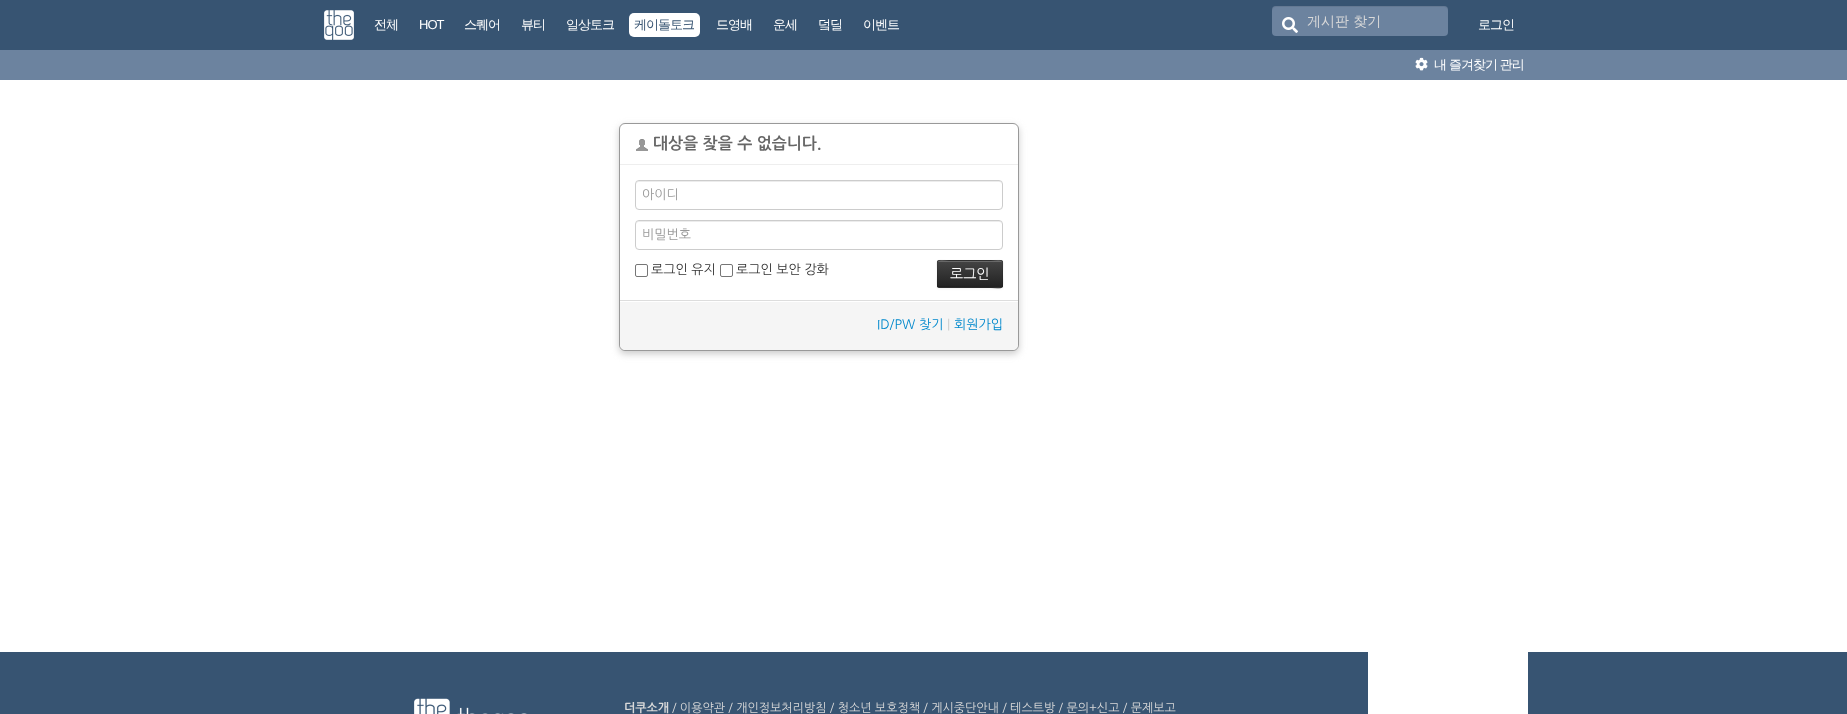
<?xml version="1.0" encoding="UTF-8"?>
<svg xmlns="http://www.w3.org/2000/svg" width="1847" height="714">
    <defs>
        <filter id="blur1" x="-50%" y="-200%" width="200%" height="500%"><feGaussianBlur stdDeviation="3.5"/></filter>
        <filter id="blur2" x="-50%" y="-200%" width="200%" height="500%"><feGaussianBlur stdDeviation="1"/></filter>
        <clipPath id="clip1"><rect x="937" y="260" width="66" height="28" rx="2"/></clipPath>
        <linearGradient id="g1" gradientUnits="userSpaceOnUse" x1="970" y1="261" x2="970" y2="287"><stop offset="0" stop-color="#444444"/><stop offset="1" stop-color="#222222"/></linearGradient>
    </defs>
    <rect width="100%" height="100%" fill="#FFFFFF"/>
    <rect x="0" y="0" width="1847" height="50" fill="#375472"/>
    <image x="324" y="10" width="30" height="30" href="img_01.png"/>
    <text x="374" y="29" font-family="WenQuanYi Zen Hei" font-size="13" font-weight="500" letter-spacing="-1" fill="#FFFFFF">전체</text>
    <text x="419" y="29" font-family="Liberation Sans" font-size="13" letter-spacing="-1" fill="#FFFFFF">HOT</text>
    <text x="464" y="29" font-family="WenQuanYi Zen Hei" font-size="13" font-weight="500" letter-spacing="-1" fill="#FFFFFF">스퀘어</text>
    <text x="521" y="29" font-family="WenQuanYi Zen Hei" font-size="13" font-weight="500" letter-spacing="-1" fill="#FFFFFF">뷰티</text>
    <text x="566" y="29" font-family="WenQuanYi Zen Hei" font-size="13" font-weight="500" letter-spacing="-1" fill="#FFFFFF">일상토크</text>
    <rect x="629" y="13" width="71" height="24" rx="5" fill="#FFFFFF"/>
    <text x="634" y="29" font-family="WenQuanYi Zen Hei" font-size="13" font-weight="500" letter-spacing="-1" fill="#375472">케이돌토크</text>
    <text x="716" y="29" font-family="WenQuanYi Zen Hei" font-size="13" font-weight="500" letter-spacing="-1" fill="#FFFFFF">드영배</text>
    <text x="773" y="29" font-family="WenQuanYi Zen Hei" font-size="13" font-weight="500" letter-spacing="-1" fill="#FFFFFF">운세</text>
    <text x="818" y="29" font-family="WenQuanYi Zen Hei" font-size="13" font-weight="500" letter-spacing="-1" fill="#FFFFFF">덬딜</text>
    <text x="863" y="29" font-family="WenQuanYi Zen Hei" font-size="13" font-weight="500" letter-spacing="-1" fill="#FFFFFF">이벤트</text>
    <rect x="1272" y="6" width="176" height="30" rx="4" fill="#6C839F"/>
    <image x="1282" y="17" width="16" height="16" href="img_02.png"/>
    <path d="M 1276 7 H 1444 C 1446 7 1448 9 1448 11 V 10 C 1448 8 1446 6 1444 6 H 1276 C 1274 6 1272 8 1272 10 V 11 C 1272 9 1274 7 1276 7 Z" fill="#000000" fill-opacity="0.07"/>
    <text x="1307" y="26" font-family="WenQuanYi Zen Hei" font-size="14" font-weight="500" fill="#D9D9D9">게시판 찾기</text>
    <text x="1478" y="29" font-family="WenQuanYi Zen Hei" font-size="13" font-weight="500" letter-spacing="-1" fill="#FFFFFF">로그인</text>
    <rect x="0" y="50" width="1847" height="30" fill="#6C839F"/>
    <image x="1415" y="57" width="13" height="14" href="img_03.png"/>
    <text x="1434" y="69" font-family="WenQuanYi Zen Hei" font-size="13" font-weight="500" letter-spacing="-1" fill="#FFFFFF">내 즐겨찾기 관리</text>
    <rect x="619" y="126" width="400" height="228" rx="6" fill="#CCCCCC" filter="url(#blur1)"/>
    <rect x="619.5" y="123.5" width="399" height="227" rx="5.5" fill="#FFFFFF" stroke="#999999"/>
    <rect x="620" y="164" width="398" height="1" fill="#EEEEEE"/>
    <image x="636" y="139" width="12" height="12" href="img_04.png"/>
    <text x="653" y="149" font-family="NanumGothic" font-size="16" font-weight="700" fill="#666666">대상을 찾을 수 없습니다.</text>
    <path d="M 639 182 H 999 C 1001 182 1002 183 1002 185 C 1002 183 1001 181 999 181 H 639 L 637 182 L 636 185 C 636 183 637 182 639 182 Z" fill="#ECECEC"/>
    <rect x="635.5" y="180.5" width="367" height="29" rx="3.5" fill="none" stroke="#CCCCCC"/>
    <text x="642" y="199" font-family="NanumGothic" font-size="13" fill="#999999">아이디</text>
    <path d="M 639 222 H 999 C 1001 222 1002 223 1002 225 C 1002 223 1001 221 999 221 H 639 L 637 222 L 636 225 C 636 223 637 222 639 222 Z" fill="#ECECEC"/>
    <rect x="635.5" y="220.5" width="367" height="29" rx="3.5" fill="none" stroke="#CCCCCC"/>
    <text x="642" y="239" font-family="NanumGothic" font-size="13" fill="#999999">비밀번호</text>
    <rect x="635.5" y="264.5" width="12" height="12" rx="1.5" fill="none" stroke="#767676"/>
    <text x="651" y="274" font-family="NanumGothic" font-size="13" fill="#333333">로그인 유지</text>
    <rect x="720.5" y="264.5" width="12" height="12" rx="1.5" fill="none" stroke="#767676"/>
    <text x="736" y="274" font-family="NanumGothic" font-size="13" fill="#333333">로그인 보안 강화</text>
    <rect x="937" y="261" width="66" height="28" rx="2" fill="#000000" fill-opacity="0.05" filter="url(#blur2)"/>
    <rect x="937" y="260" width="66" height="28" rx="2" fill="#363636"/>
    <g clip-path="url(#clip1)">
        <rect x="937" y="261" width="66" height="26" fill="url(#g1)"/>
    </g>
    <path d="M 939 262 H 1001 C 1002 262 1002 262 1002 263 C 1002 258 994 261 991 261 H 949 C 946 261 938 258 938 263 C 938 262 938 262 939 262 Z" fill="#FFFFFF" fill-opacity="0.2"/>
    <path d="M 1002 287 C 999.5 290 994.5 287.5 990.5 287.5 L 938 287" fill="none" stroke="#000000" stroke-opacity="0.25"/>
    <path d="M 938 287 C 936.5 285.5 937.5 276 937.5 274 C 937.5 258 934 260.5 949.5 260.5 H 990.5 C 1006 260.5 1002.5 258 1002.5 274 C 1002.5 276 1003.5 285.5 1002 287" fill="none" stroke="#000000" stroke-opacity="0.1"/>
    <text x="950" y="279" font-family="NanumGothic" font-size="14" fill="#FFFFFF">로그인</text>
    <path d="M 620 300 H 1018 V 344 C 1018 347.5 1015.5 350 1012 350 H 626 C 622.5 350 620 347.5 620 344 Z" fill="#F5F5F5"/>
    <rect x="620" y="301" width="398" height="1" fill="#FFFFFF"/>
    <rect x="620" y="300" width="398" height="1" fill="#DDDDDD"/>
    <text x="877" y="329" font-family="NanumGothic" font-size="13" fill="#0088CC">ID/PW 찾기</text>
    <text x="947" y="329" font-family="NanumGothic" font-size="13" fill="#CCCCCC">|</text>
    <text x="954" y="329" font-family="NanumGothic" font-size="13" fill="#0088CC">회원가입</text>
    <rect x="0" y="652" width="1847" height="62" fill="#375472"/>
    <rect x="1368" y="652" width="160" height="62" fill="#FFFFFF"/>
    <image x="414" y="698" width="113" height="16" href="img_05.png"/>
    <text x="624" y="712" font-family="NanumGothic" font-size="12" font-weight="700" fill="#D9D9D9">더쿠소개</text>
    <text x="672" y="712" font-family="NanumGothic" font-size="12" fill="#D9D9D9">/ 이용약관 / 개인정보처리방침 / 청소년 보호정책 / 게시중단안내 / 테스트방 / 문의+신고 / 문제보고</text>
</svg>
